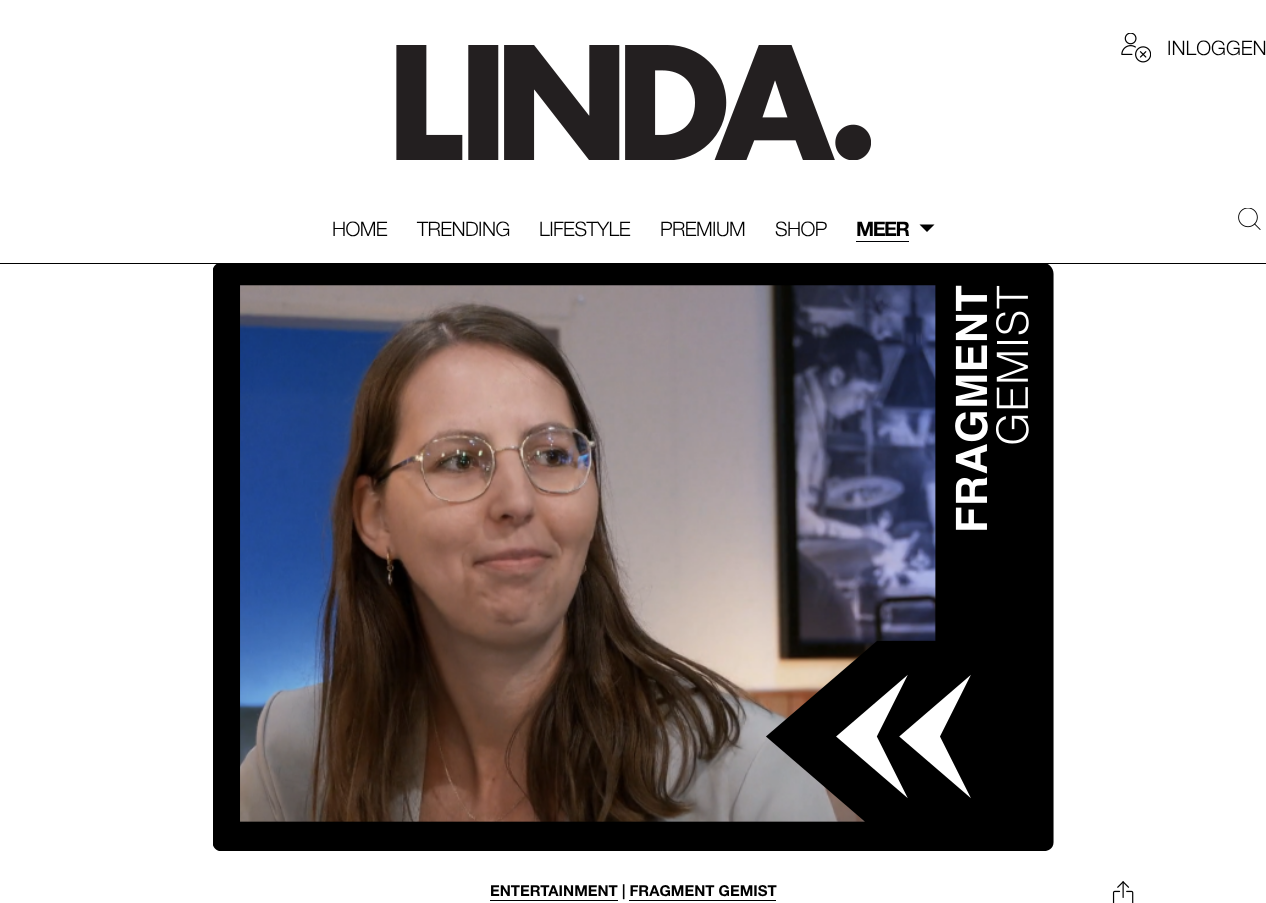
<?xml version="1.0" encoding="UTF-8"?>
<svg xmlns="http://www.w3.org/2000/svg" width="1266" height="903">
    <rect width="100%" height="100%" fill="#FFFFFF"/>
    <rect x="0" y="263" width="1266" height="1" fill="#000000"/>
    <image x="396" y="45" width="475" height="115" href="img_01.png"/>
    <image x="1121" y="33" width="30" height="30" href="img_02.png"/>
    <text x="1167" y="55" font-family="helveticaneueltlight" font-size="20" font-weight="300" fill="#000000">INLOGGEN</text>
    <text x="332" y="236" font-family="helveticaneueltlight" font-size="20" font-weight="300" letter-spacing="-0.6" fill="#000000">HOME</text>
    <text x="417" y="236" font-family="helveticaneueltlight" font-size="20" font-weight="300" letter-spacing="-0.6" fill="#000000">TRENDING</text>
    <text x="539" y="236" font-family="helveticaneueltlight" font-size="20" font-weight="300" letter-spacing="-0.6" fill="#000000">LIFESTYLE</text>
    <text x="660" y="236" font-family="helveticaneueltlight" font-size="20" font-weight="300" letter-spacing="-0.6" fill="#000000">PREMIUM</text>
    <text x="775" y="236" font-family="helveticaneueltlight" font-size="20" font-weight="300" letter-spacing="-0.6" fill="#000000">SHOP</text>
    <text x="856" y="236" font-family="Helvetica Neue" font-size="20" font-weight="700" letter-spacing="-1.5" fill="#000000">MEER</text>
    <rect x="856" y="241" width="53" height="1" fill="#000105"/>
    <path d="M 919.5 224.5 H 934.5 L 927 232 Z" fill="#000000"/>
    <image x="1238" y="208" width="23" height="22" href="img_03.png"/>
    <image x="240" y="285" width="696" height="537" href="img_05.png"/>
    <image x="213" y="264" width="841" height="587" href="img_04.png"/>
    <text x="490" y="896" font-family="Helvetica Neue" font-size="15" font-weight="700" fill="#000000">ENTERTAINMENT | FRAGMENT GEMIST</text>
    <rect x="490" y="900" width="128" height="1" fill="#000000"/>
    <rect x="629" y="900" width="147" height="1" fill="#000000"/>
    <image x="1112" y="881" width="22" height="22" href="img_06.png"/>
</svg>
